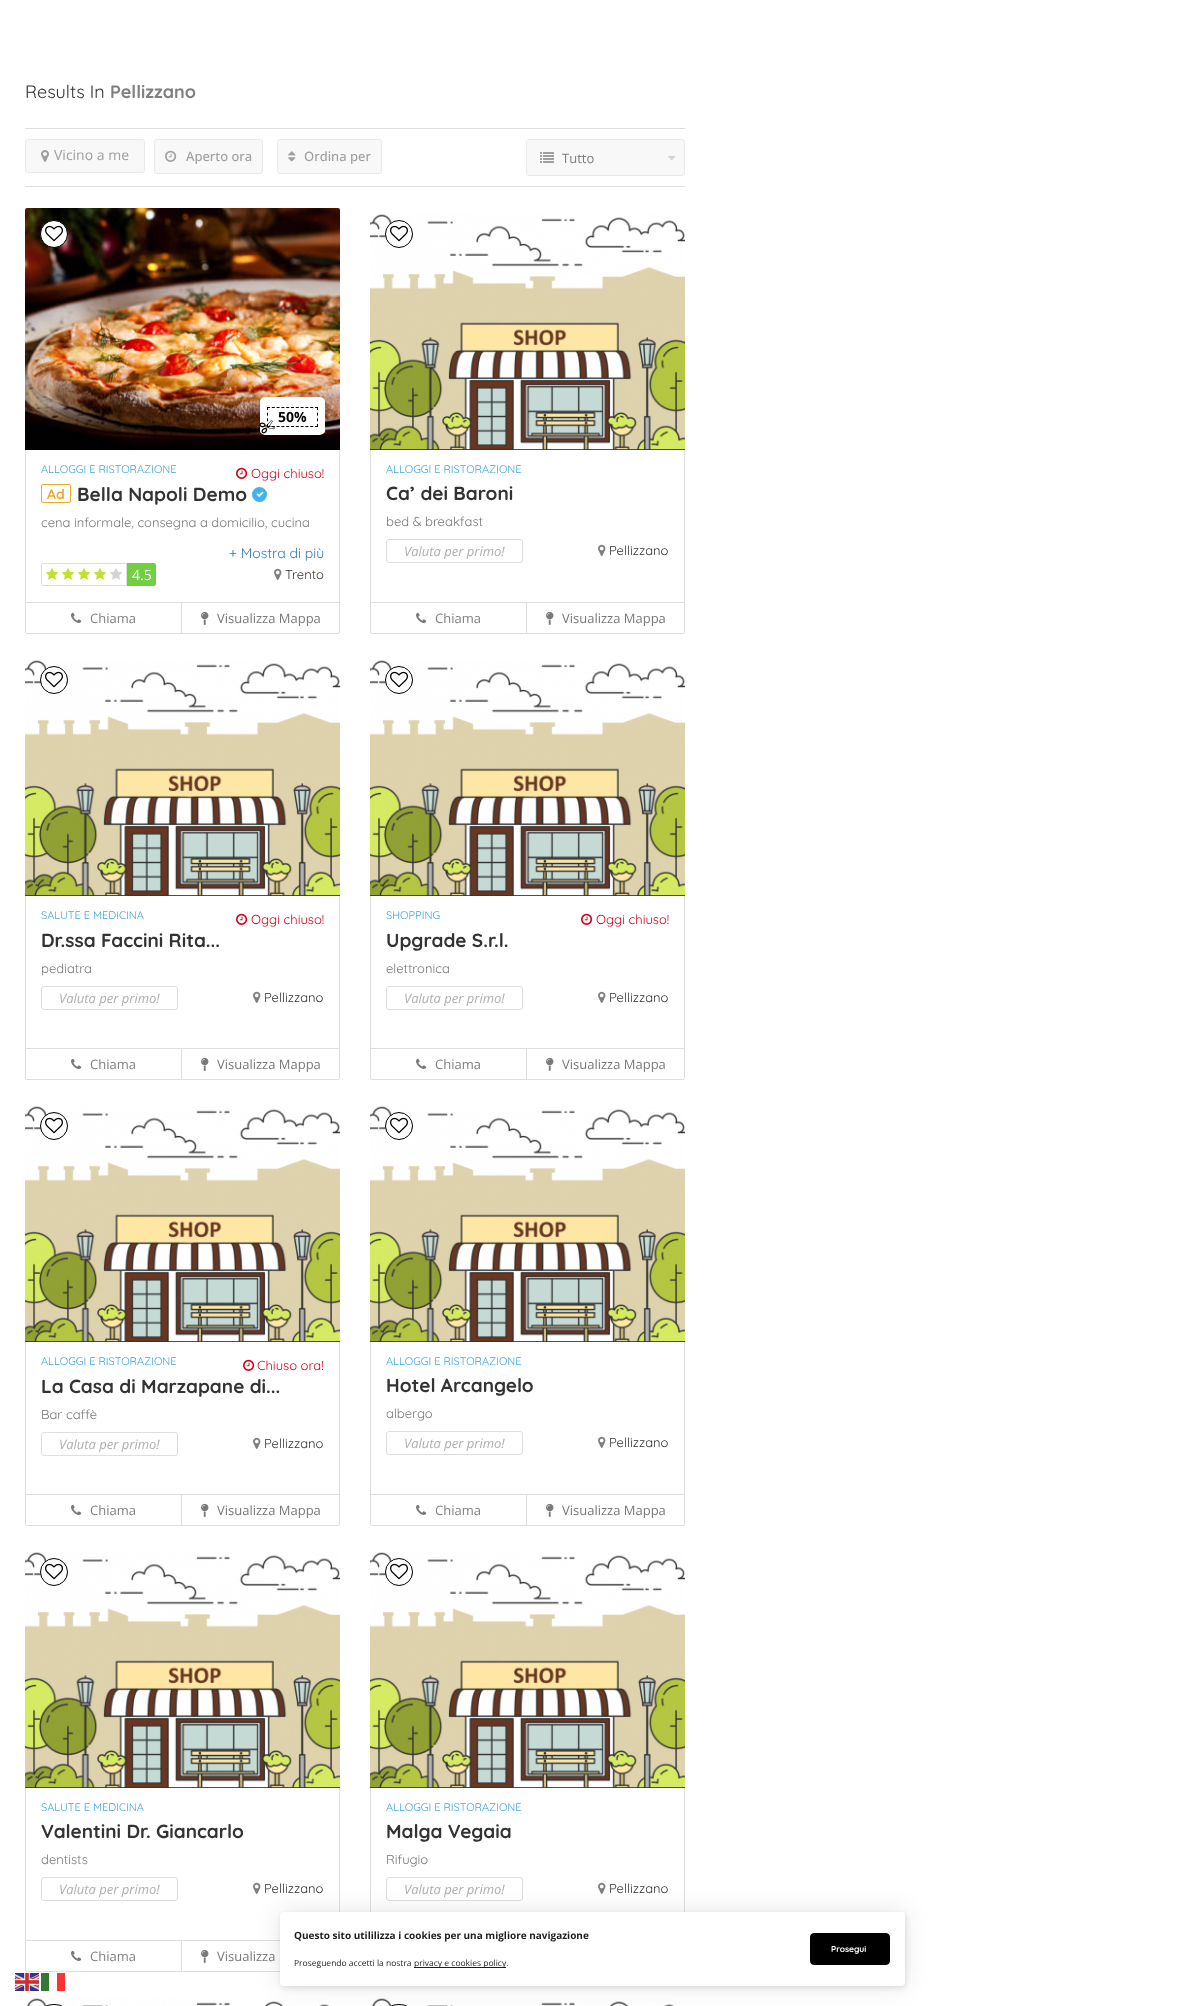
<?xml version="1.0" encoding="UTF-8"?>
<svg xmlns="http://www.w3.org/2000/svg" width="1183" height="2006">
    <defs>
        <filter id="blur1" x="-50%" y="-200%" width="200%" height="500%"><feGaussianBlur stdDeviation="2.5"/></filter>
        <filter id="blur2" x="-50%" y="-200%" width="200%" height="500%"><feGaussianBlur stdDeviation="12.5"/></filter>
    </defs>
    <rect width="100%" height="100%" fill="#FFFFFF"/>
    <text x="25" y="98" font-family="Quicksand" font-size="18" fill="#333333">Results In</text>
    <text x="110" y="98" font-family="Quicksand" font-size="18" font-weight="700" fill="#7F7F7F">Pellizzano</text>
    <rect x="25" y="128" width="660" height="1" fill="#DEDEDE"/>
    <rect x="25" y="186" width="660" height="1" fill="#DEDEDE"/>
    <rect x="25.5" y="139.5" width="119" height="33" rx="2.5" fill="#F8F8F8" stroke="#EAEAEA"/>
    <image x="41" y="150" width="8" height="12" href="img_01.png"/>
    <text x="54" y="160" font-family="Open Sans" font-size="14" fill="#9F9F9F">Vicino a me</text>
    <rect x="154.5" y="139.5" width="108" height="34" rx="2.5" fill="#F8F8F8" stroke="#EAEAEA"/>
    <image x="165" y="150" width="12" height="12" href="img_02.png"/>
    <text x="186" y="161" font-family="Open Sans" font-size="13" font-weight="500" fill="#9F9F9F">Aperto ora</text>
    <rect x="277.5" y="139.5" width="104" height="34" rx="2.5" fill="#F8F8F8" stroke="#EAEAEA"/>
    <image x="288" y="151" width="8" height="11" href="img_03.png"/>
    <text x="304" y="161" font-family="Open Sans" font-size="13" font-weight="500" fill="#9F9F9F">Ordina per</text>
    <rect x="526.5" y="139.5" width="158" height="36" rx="2.5" fill="#F8F8F8" stroke="#EAEAEA"/>
    <rect x="527" y="140" width="1" height="35" fill="#F8F8F8"/>
    <image x="540" y="152" width="14" height="11" href="img_04.png"/>
    <text x="562" y="163" font-family="Open Sans" font-size="13" fill="#7F7F7F">Tutto</text>
    <image x="668" y="156" width="8" height="4" href="img_05.png"/>
    <image x="25" y="208" width="315" height="242" href="img_06.png"/>
    <circle cx="54" cy="234" r="13.5" fill="#FFFFFF" stroke="#000000"/>
    <image x="45" y="225" width="18" height="17" href="img_07.png"/>
    <path d="M 266 397 H 318 C 322 397 325 399 325 401 V 431 C 325 433 322 435 318 435 H 266 C 263 435 260 433 260 431 V 401 C 260 399 263 397 266 397 Z" fill="#FFFFFF"/>
    <path d="M 267 407.5 H 318" fill="none" stroke="#000000" stroke-dasharray="3 1.8"/>
    <path d="M 317.5 407 V 427" fill="none" stroke="#000000" stroke-dasharray="3 2.67"/>
    <image x="259" y="420" width="16" height="14" href="img_08.png"/>
    <path d="M 267 426.5 H 318" fill="none" stroke="#000000" stroke-dasharray="3 1.8"/>
    <path d="M 267.5 407 V 427" fill="none" stroke="#000000" stroke-dasharray="3 2.67"/>
    <text x="278" y="422" font-family="Open Sans" font-size="14" font-weight="700" fill="#000000">50%</text>
    <rect x="339" y="450" width="1" height="183" fill="#DEDEDE"/>
    <rect x="25" y="602" width="315" height="1" fill="#DEDEDE"/>
    <rect x="25" y="450" width="1" height="183" fill="#DEDEDE"/>
    <text x="41" y="473" font-family="Quicksand" font-size="11" fill="#41A6DF">ALLOGGI E RISTORAZIONE</text>
    <image x="236" y="467" width="12" height="12" href="img_09.png"/>
    <text x="251" y="478" font-family="Quicksand" font-size="13" fill="#D0021B">Oggi chiuso!</text>
    <rect x="41.5" y="484.5" width="29" height="18" rx="1.5" fill="none" stroke="#EBAC2C"/>
    <text x="47" y="499" font-family="Quicksand" font-size="14" font-weight="700" fill="#EBAC2C">Ad</text>
    <text x="77" y="501" font-family="Quicksand" font-size="19" font-weight="700" fill="#333333">Bella Napoli Demo</text>
    <circle cx="259.5" cy="494.5" r="7.5" fill="#40B3EF"/>
    <image x="256" y="491" width="8" height="6" href="img_10.png"/>
    <text x="41" y="527" font-family="Quicksand" font-size="13" fill="#797979">cena informale, consegna a domicilio, cucina</text>
    <text x="229" y="558" font-family="Quicksand" font-size="14" fill="#337AB7">+ Mostra di più</text>
    <path d="M 43 563.5 H 126.5 V 585.5 H 43 C 42 585.5 41.5 585 41.5 584 V 565 C 41.5 564 42 563.5 43 563.5 Z" fill="none" stroke="#DEDEDE"/>
    <image x="46" y="568" width="12" height="12" href="img_11.png"/>
    <image x="62" y="568" width="12" height="12" href="img_11.png"/>
    <image x="78" y="568" width="12" height="12" href="img_11.png"/>
    <image x="94" y="568" width="12" height="12" href="img_11.png"/>
    <image x="110" y="568" width="12" height="12" href="img_12.png"/>
    <path d="M 127 563 H 154 C 155 563 156 564 156 565 V 584 C 156 585 155 586 154 586 H 127 Z" fill="#73CF42"/>
    <text x="132" y="580" font-family="Open Sans" font-size="14" fill="#FFFFFF">4.5</text>
    <image x="274" y="568" width="8" height="12" href="img_13.png"/>
    <text x="285" y="579" font-family="Quicksand" font-size="13" fill="#333333">Trento</text>
    <rect x="26" y="633" width="313" height="1" fill="#DEDEDE"/>
    <rect x="181" y="603" width="1" height="30" fill="#DEDEDE"/>
    <image x="71" y="612" width="11" height="11" href="img_14.png"/>
    <text x="90" y="623" font-family="Open Sans" font-size="13" fill="#7F7F7F">Chiama</text>
    <image x="201" y="611" width="8" height="14" href="img_15.png"/>
    <text x="217" y="623" font-family="Open Sans" font-size="13" fill="#797979">Visualizza Mappa</text>
    <image x="370" y="214" width="315" height="236" href="img_16.png"/>
    <circle cx="399" cy="234" r="13.5" fill="#FFFFFF" stroke="#000000"/>
    <image x="390" y="225" width="18" height="17" href="img_07.png"/>
    <rect x="684" y="450" width="1" height="183" fill="#DEDEDE"/>
    <rect x="370" y="602" width="315" height="1" fill="#DEDEDE"/>
    <rect x="370" y="450" width="1" height="183" fill="#DEDEDE"/>
    <text x="386" y="473" font-family="Quicksand" font-size="11" fill="#41A6DF">ALLOGGI E RISTORAZIONE</text>
    <text x="386" y="500" font-family="Quicksand" font-size="19" font-weight="700" fill="#333333">Ca’ dei Baroni</text>
    <text x="386" y="526" font-family="Quicksand" font-size="13" fill="#797979">bed &amp; breakfast</text>
    <rect x="386.5" y="539.5" width="136" height="23" rx="2.5" fill="none" stroke="#DEDEDE"/>
    <text x="404" y="556" font-family="Open Sans" font-size="13" font-style="italic" fill="#AFAFAF">Valuta per primo!</text>
    <image x="598" y="544" width="8" height="12" href="img_13.png"/>
    <text x="609" y="555" font-family="Quicksand" font-size="13" fill="#333333">Pellizzano</text>
    <rect x="371" y="633" width="313" height="1" fill="#DEDEDE"/>
    <rect x="526" y="603" width="1" height="30" fill="#DEDEDE"/>
    <image x="416" y="612" width="11" height="11" href="img_14.png"/>
    <text x="435" y="623" font-family="Open Sans" font-size="13" fill="#7F7F7F">Chiama</text>
    <image x="546" y="611" width="8" height="14" href="img_15.png"/>
    <text x="562" y="623" font-family="Open Sans" font-size="13" fill="#797979">Visualizza Mappa</text>
    <image x="25" y="660" width="315" height="236" href="img_16.png"/>
    <circle cx="54" cy="680" r="13.5" fill="#FFFFFF" stroke="#000000"/>
    <image x="45" y="671" width="18" height="17" href="img_07.png"/>
    <rect x="339" y="896" width="1" height="183" fill="#DEDEDE"/>
    <rect x="25" y="1048" width="315" height="1" fill="#DEDEDE"/>
    <rect x="25" y="896" width="1" height="183" fill="#DEDEDE"/>
    <text x="41" y="919" font-family="Quicksand" font-size="11" fill="#41A6DF">SALUTE E MEDICINA</text>
    <image x="236" y="913" width="12" height="12" href="img_09.png"/>
    <text x="251" y="924" font-family="Quicksand" font-size="13" fill="#D0021B">Oggi chiuso!</text>
    <text x="41" y="947" font-family="Quicksand" font-size="19" font-weight="700" fill="#333333">Dr.ssa Faccini Rita...</text>
    <text x="41" y="973" font-family="Quicksand" font-size="13" fill="#797979">pediatra</text>
    <rect x="41.5" y="986.5" width="136" height="23" rx="2.5" fill="none" stroke="#DEDEDE"/>
    <text x="59" y="1003" font-family="Open Sans" font-size="13" font-style="italic" fill="#AFAFAF">Valuta per primo!</text>
    <image x="253" y="991" width="8" height="12" href="img_13.png"/>
    <text x="264" y="1002" font-family="Quicksand" font-size="13" fill="#333333">Pellizzano</text>
    <rect x="26" y="1079" width="313" height="1" fill="#DEDEDE"/>
    <rect x="181" y="1049" width="1" height="30" fill="#DEDEDE"/>
    <image x="71" y="1058" width="11" height="11" href="img_14.png"/>
    <text x="90" y="1069" font-family="Open Sans" font-size="13" fill="#7F7F7F">Chiama</text>
    <image x="201" y="1057" width="8" height="14" href="img_15.png"/>
    <text x="217" y="1069" font-family="Open Sans" font-size="13" fill="#797979">Visualizza Mappa</text>
    <image x="370" y="660" width="315" height="236" href="img_16.png"/>
    <circle cx="399" cy="680" r="13.5" fill="#FFFFFF" stroke="#000000"/>
    <image x="390" y="671" width="18" height="17" href="img_07.png"/>
    <rect x="684" y="896" width="1" height="183" fill="#DEDEDE"/>
    <rect x="370" y="1048" width="315" height="1" fill="#DEDEDE"/>
    <rect x="370" y="896" width="1" height="183" fill="#DEDEDE"/>
    <text x="386" y="919" font-family="Quicksand" font-size="11" fill="#41A6DF">SHOPPING</text>
    <image x="581" y="913" width="12" height="12" href="img_09.png"/>
    <text x="596" y="924" font-family="Quicksand" font-size="13" fill="#D0021B">Oggi chiuso!</text>
    <text x="386" y="947" font-family="Quicksand" font-size="19" font-weight="700" fill="#333333">Upgrade S.r.l.</text>
    <text x="386" y="973" font-family="Quicksand" font-size="13" fill="#797979">elettronica</text>
    <rect x="386.5" y="986.5" width="136" height="23" rx="2.5" fill="none" stroke="#DEDEDE"/>
    <text x="404" y="1003" font-family="Open Sans" font-size="13" font-style="italic" fill="#AFAFAF">Valuta per primo!</text>
    <image x="598" y="991" width="8" height="12" href="img_13.png"/>
    <text x="609" y="1002" font-family="Quicksand" font-size="13" fill="#333333">Pellizzano</text>
    <rect x="371" y="1079" width="313" height="1" fill="#DEDEDE"/>
    <rect x="526" y="1049" width="1" height="30" fill="#DEDEDE"/>
    <image x="416" y="1058" width="11" height="11" href="img_14.png"/>
    <text x="435" y="1069" font-family="Open Sans" font-size="13" fill="#7F7F7F">Chiama</text>
    <image x="546" y="1057" width="8" height="14" href="img_15.png"/>
    <text x="562" y="1069" font-family="Open Sans" font-size="13" fill="#797979">Visualizza Mappa</text>
    <image x="25" y="1106" width="315" height="236" href="img_16.png"/>
    <circle cx="54" cy="1126" r="13.5" fill="#FFFFFF" stroke="#000000"/>
    <image x="45" y="1117" width="18" height="17" href="img_07.png"/>
    <rect x="339" y="1342" width="1" height="183" fill="#DEDEDE"/>
    <rect x="25" y="1494" width="315" height="1" fill="#DEDEDE"/>
    <rect x="25" y="1342" width="1" height="183" fill="#DEDEDE"/>
    <text x="41" y="1365" font-family="Quicksand" font-size="11" fill="#41A6DF">ALLOGGI E RISTORAZIONE</text>
    <image x="243" y="1359" width="12" height="12" href="img_09.png"/>
    <text x="257" y="1370" font-family="Quicksand" font-size="13" fill="#D0021B">Chiuso ora!</text>
    <text x="41" y="1393" font-family="Quicksand" font-size="19" font-weight="700" fill="#333333">La Casa di Marzapane di...</text>
    <text x="41" y="1419" font-family="Quicksand" font-size="13" fill="#797979">Bar caffè</text>
    <rect x="41.5" y="1432.5" width="136" height="23" rx="2.5" fill="none" stroke="#DEDEDE"/>
    <text x="59" y="1449" font-family="Open Sans" font-size="13" font-style="italic" fill="#AFAFAF">Valuta per primo!</text>
    <image x="253" y="1437" width="8" height="12" href="img_13.png"/>
    <text x="264" y="1448" font-family="Quicksand" font-size="13" fill="#333333">Pellizzano</text>
    <rect x="26" y="1525" width="313" height="1" fill="#DEDEDE"/>
    <rect x="181" y="1495" width="1" height="30" fill="#DEDEDE"/>
    <image x="71" y="1504" width="11" height="11" href="img_14.png"/>
    <text x="90" y="1515" font-family="Open Sans" font-size="13" fill="#7F7F7F">Chiama</text>
    <image x="201" y="1503" width="8" height="14" href="img_15.png"/>
    <text x="217" y="1515" font-family="Open Sans" font-size="13" fill="#797979">Visualizza Mappa</text>
    <image x="370" y="1106" width="315" height="236" href="img_16.png"/>
    <circle cx="399" cy="1126" r="13.5" fill="#FFFFFF" stroke="#000000"/>
    <image x="390" y="1117" width="18" height="17" href="img_07.png"/>
    <rect x="684" y="1342" width="1" height="183" fill="#DEDEDE"/>
    <rect x="370" y="1494" width="315" height="1" fill="#DEDEDE"/>
    <rect x="370" y="1342" width="1" height="183" fill="#DEDEDE"/>
    <text x="386" y="1365" font-family="Quicksand" font-size="11" fill="#41A6DF">ALLOGGI E RISTORAZIONE</text>
    <text x="386" y="1392" font-family="Quicksand" font-size="19" font-weight="700" fill="#333333">Hotel Arcangelo</text>
    <text x="386" y="1418" font-family="Quicksand" font-size="13" fill="#797979">albergo</text>
    <rect x="386.5" y="1431.5" width="136" height="23" rx="2.5" fill="none" stroke="#DEDEDE"/>
    <text x="404" y="1448" font-family="Open Sans" font-size="13" font-style="italic" fill="#AFAFAF">Valuta per primo!</text>
    <image x="598" y="1436" width="8" height="12" href="img_13.png"/>
    <text x="609" y="1447" font-family="Quicksand" font-size="13" fill="#333333">Pellizzano</text>
    <rect x="371" y="1525" width="313" height="1" fill="#DEDEDE"/>
    <rect x="526" y="1495" width="1" height="30" fill="#DEDEDE"/>
    <image x="416" y="1504" width="11" height="11" href="img_14.png"/>
    <text x="435" y="1515" font-family="Open Sans" font-size="13" fill="#7F7F7F">Chiama</text>
    <image x="546" y="1503" width="8" height="14" href="img_15.png"/>
    <text x="562" y="1515" font-family="Open Sans" font-size="13" fill="#797979">Visualizza Mappa</text>
    <image x="25" y="1552" width="315" height="236" href="img_16.png"/>
    <circle cx="54" cy="1572" r="13.5" fill="#FFFFFF" stroke="#000000"/>
    <image x="45" y="1563" width="18" height="17" href="img_07.png"/>
    <rect x="339" y="1788" width="1" height="124" fill="#DEDEDE"/>
    <rect x="25" y="1940" width="255" height="1" fill="#DEDEDE"/>
    <rect x="25" y="1788" width="1" height="183" fill="#DEDEDE"/>
    <text x="41" y="1811" font-family="Quicksand" font-size="11" fill="#41A6DF">SALUTE E MEDICINA</text>
    <text x="41" y="1838" font-family="Quicksand" font-size="19" font-weight="700" fill="#333333">Valentini Dr. Giancarlo</text>
    <text x="41" y="1864" font-family="Quicksand" font-size="13" fill="#797979">dentists</text>
    <rect x="41.5" y="1877.5" width="136" height="23" rx="2.5" fill="none" stroke="#DEDEDE"/>
    <text x="59" y="1894" font-family="Open Sans" font-size="13" font-style="italic" fill="#AFAFAF">Valuta per primo!</text>
    <image x="253" y="1882" width="8" height="12" href="img_13.png"/>
    <text x="264" y="1893" font-family="Quicksand" font-size="13" fill="#333333">Pellizzano</text>
    <rect x="26" y="1971" width="254" height="1" fill="#DEDEDE"/>
    <rect x="181" y="1941" width="1" height="30" fill="#DEDEDE"/>
    <image x="71" y="1950" width="11" height="11" href="img_14.png"/>
    <text x="90" y="1961" font-family="Open Sans" font-size="13" fill="#7F7F7F">Chiama</text>
    <image x="201" y="1949" width="8" height="14" href="img_15.png"/>
    <text x="217" y="1961" font-family="Open Sans" font-size="13" fill="#797979">Visualizza</text>
    <image x="370" y="1552" width="315" height="236" href="img_16.png"/>
    <circle cx="399" cy="1572" r="13.5" fill="#FFFFFF" stroke="#000000"/>
    <image x="390" y="1563" width="18" height="17" href="img_07.png"/>
    <rect x="684" y="1788" width="1" height="124" fill="#DEDEDE"/>
    <rect x="370" y="1788" width="1" height="124" fill="#DEDEDE"/>
    <text x="386" y="1811" font-family="Quicksand" font-size="11" fill="#41A6DF">ALLOGGI E RISTORAZIONE</text>
    <text x="386" y="1838" font-family="Quicksand" font-size="19" font-weight="700" fill="#333333">Malga Vegaia</text>
    <text x="386" y="1864" font-family="Quicksand" font-size="13" fill="#797979">Rifugio</text>
    <rect x="386.5" y="1877.5" width="136" height="23" rx="2.5" fill="none" stroke="#DEDEDE"/>
    <text x="404" y="1894" font-family="Open Sans" font-size="13" font-style="italic" fill="#AFAFAF">Valuta per primo!</text>
    <image x="598" y="1882" width="8" height="12" href="img_13.png"/>
    <text x="609" y="1893" font-family="Quicksand" font-size="13" fill="#333333">Pellizzano</text>
    <image x="25" y="1998" width="304" height="8" href="img_17.png"/>
    <rect x="40.5" y="2004.5" width="27" height="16" rx="13.5" fill="none" stroke="#000000"/>
    <image x="370" y="1998" width="304" height="8" href="img_17.png"/>
    <rect x="385.5" y="2004.5" width="27" height="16" rx="13.5" fill="none" stroke="#000000"/>
    <image x="15" y="1973" width="24" height="18" href="img_18.png"/>
    <rect x="41" y="1973" width="8" height="18" fill="#337933"/>
    <rect x="57" y="1973" width="8" height="18" fill="#FD3333"/>
    <rect x="281" y="1914" width="625" height="74" rx="4" fill="#000000" fill-opacity="0.1" filter="url(#blur1)"/>
    <rect x="280" y="1912" width="625" height="74" rx="4" fill="#000000" fill-opacity="0.1" filter="url(#blur2)"/>
    <rect x="280" y="1912" width="625" height="74" rx="4" fill="#FFFFFF"/>
    <text x="294" y="1939" font-family="Open Sans" font-size="10" font-weight="700" fill="#1E1E1E">Questo sito utililizza i cookies per una migliore navigazione</text>
    <text x="294" y="1966" font-family="Open Sans" font-size="8.5" fill="#1E1E1E">Proseguendo accetti la nostra</text>
    <rect x="414" y="1967" width="92" height="1" fill="#1E1E1E"/>
    <text x="414" y="1966" font-family="Open Sans" font-size="8.5" fill="#1E1E1E">privacy e cookies policy.</text>
    <rect x="810.5" y="1933.5" width="79" height="31" rx="3.5" fill="#000000" stroke="#000000"/>
    <text x="831" y="1952" font-family="Quicksand" font-size="8.5" font-weight="700" fill="#FFFFFF">Prosegui</text>
</svg>
